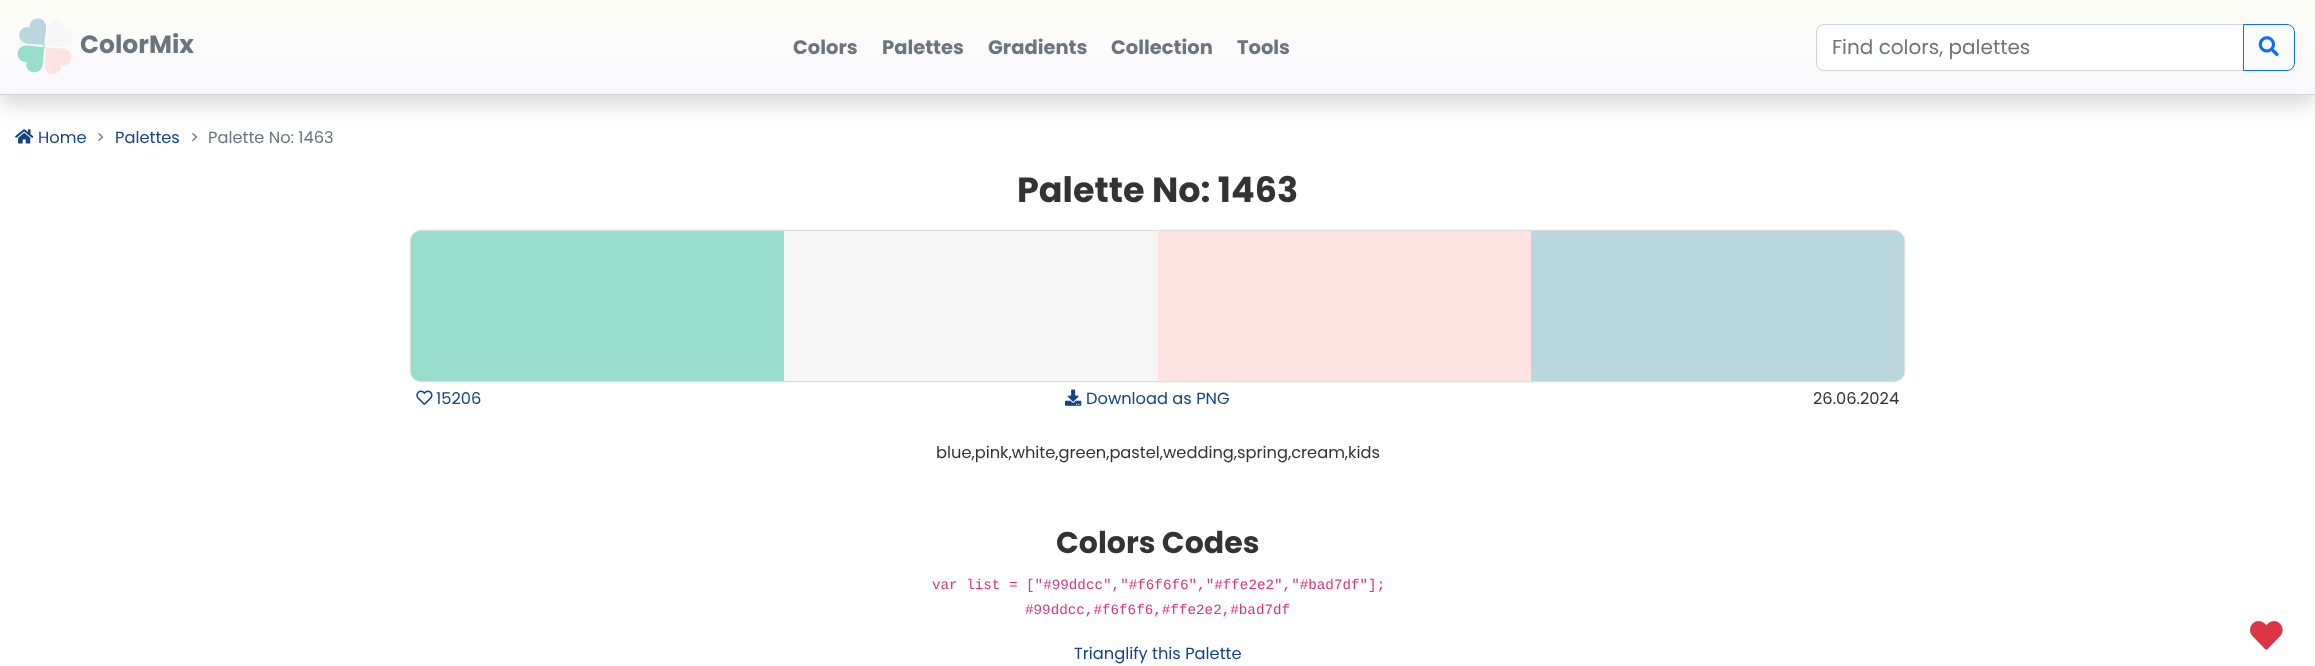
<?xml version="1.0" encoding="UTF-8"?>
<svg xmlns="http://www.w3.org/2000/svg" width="2315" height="666">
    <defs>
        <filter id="blur1" x="-50%" y="-200%" width="200%" height="500%"><feGaussianBlur stdDeviation="10"/></filter>
        <linearGradient id="g1" gradientUnits="userSpaceOnUse" x1="1158" y1="0" x2="1158" y2="95"><stop offset="0" stop-color="#FDFDF6"/><stop offset="1" stop-color="#F8F8FE"/></linearGradient>
        <filter id="blur2" x="-50%" y="-200%" width="200%" height="500%"><feGaussianBlur stdDeviation="1"/></filter>
    </defs>
    <rect width="100%" height="100%" fill="#FFFFFF"/>
    <image x="15" y="129" width="19" height="15" href="img_03.png"/>
    <rect x="0" y="10" width="2315" height="95" fill="#000000" fill-opacity="0.15" filter="url(#blur1)"/>
    <rect x="0" y="0" width="2315" height="94" fill="url(#g1)"/>
    <rect x="0" y="94" width="2315" height="1" fill="#D3D3D8"/>
    <image x="17" y="18" width="56" height="56" href="img_01.png"/>
    <text x="80" y="53" font-family="Poppins" font-size="25" font-weight="700" fill="#6C757D">ColorMix</text>
    <text x="793" y="54" font-family="Poppins" font-size="19.5" font-weight="700" fill="#6C757D">Colors</text>
    <text x="882" y="54" font-family="Poppins" font-size="19.5" font-weight="700" fill="#6C757D">Palettes</text>
    <text x="988" y="54" font-family="Poppins" font-size="19.5" font-weight="700" fill="#6C757D">Gradients</text>
    <text x="1111" y="54" font-family="Poppins" font-size="19.5" font-weight="700" fill="#6C757D">Collection</text>
    <text x="1237" y="54" font-family="Poppins" font-size="19.5" font-weight="700" fill="#6C757D">Tools</text>
    <path d="M 1824 25 H 2243 V 70 H 1824 C 1820.5 70 1818 67.5 1818 64 V 31 C 1818 27.5 1820.5 25 1824 25 Z" fill="#FFFFFF"/>
    <path d="M 1824 24.5 H 2243.5 V 70.5 H 1824 C 1820 70.5 1816.5 67 1816.5 63 V 32 C 1816.5 28 1820 24.5 1824 24.5 Z" fill="none" stroke="#CED4DA"/>
    <text x="1832" y="54" font-family="Poppins" font-size="20" fill="#6C757D">Find colors, palettes</text>
    <path d="M 2243.5 24.5 H 2287 C 2291 24.5 2294.5 28 2294.5 32 V 63 C 2294.5 67 2291 70.5 2287 70.5 H 2243.5 Z" fill="none" stroke="#0D6EFD"/>
    <image x="2258" y="36" width="21" height="21" href="img_02.png"/>
    <text x="38" y="143" font-family="Poppins" font-size="16.25" fill="#154387">Home</text>
    <text x="96" y="143" font-family="Poppins" font-size="16.25" fill="#6C757D">&gt;</text>
    <text x="115" y="143" font-family="Poppins" font-size="16.25" fill="#154387">Palettes</text>
    <text x="190" y="143" font-family="Poppins" font-size="16.25" fill="#6C757D">&gt;</text>
    <text x="208" y="143" font-family="Poppins" font-size="16.25" fill="#6C757D">Palette No: 1463</text>
    <text x="1017" y="202" font-family="Poppins" font-size="35" font-weight="700" fill="#333333">Palette No: 1463</text>
    <rect x="411" y="231" width="1493" height="150" rx="10" fill="#999999" filter="url(#blur2)"/>
    <path d="M 421 231 H 784 V 381 H 421 C 415.5 381 411 376.5 411 371 V 241 C 411 235.5 415.5 231 421 231 Z" fill="#99DDCC"/>
    <rect x="784" y="231" width="374" height="150" fill="#F6F6F6"/>
    <rect x="1158" y="231" width="373" height="150" fill="#FFE2E2"/>
    <path d="M 1531 231 H 1894 C 1899.5 231 1904 235.5 1904 241 V 371 C 1904 376.5 1899.5 381 1894 381 H 1531 Z" fill="#BAD7DF"/>
    <image x="416" y="390" width="17" height="15" href="img_04.png"/>
    <text x="436" y="404" font-family="Poppins" font-size="16.25" fill="#154387">15206</text>
    <image x="1065" y="389" width="17" height="17" href="img_05.png"/>
    <text x="1086" y="404" font-family="Poppins" font-size="16.25" fill="#154387">Download as PNG</text>
    <text x="1813" y="404" font-family="Poppins" font-size="16.25" fill="#333333">26.06.2024</text>
    <text x="936" y="458" font-family="Poppins" font-size="16.25" fill="#333333">blue,pink,white,green,pastel,wedding,spring,cream,kids</text>
    <text x="1056" y="553" font-family="Poppins" font-size="30" font-weight="700" fill="#333333">Colors Codes</text>
    <text x="932" y="589" font-family="Liberation Mono" font-size="14.25" fill="#D63384">var list = ["#99ddcc","#f6f6f6","#ffe2e2","#bad7df"];</text>
    <text x="1025" y="614" font-family="Liberation Mono" font-size="14.25" fill="#D63384">#99ddcc,#f6f6f6,#ffe2e2,#bad7df</text>
    <text x="1074" y="659" font-family="Poppins" font-size="16.25" fill="#154387">Trianglify this Palette</text>
    <image x="2250" y="621" width="33" height="29" href="img_06.png"/>
</svg>
